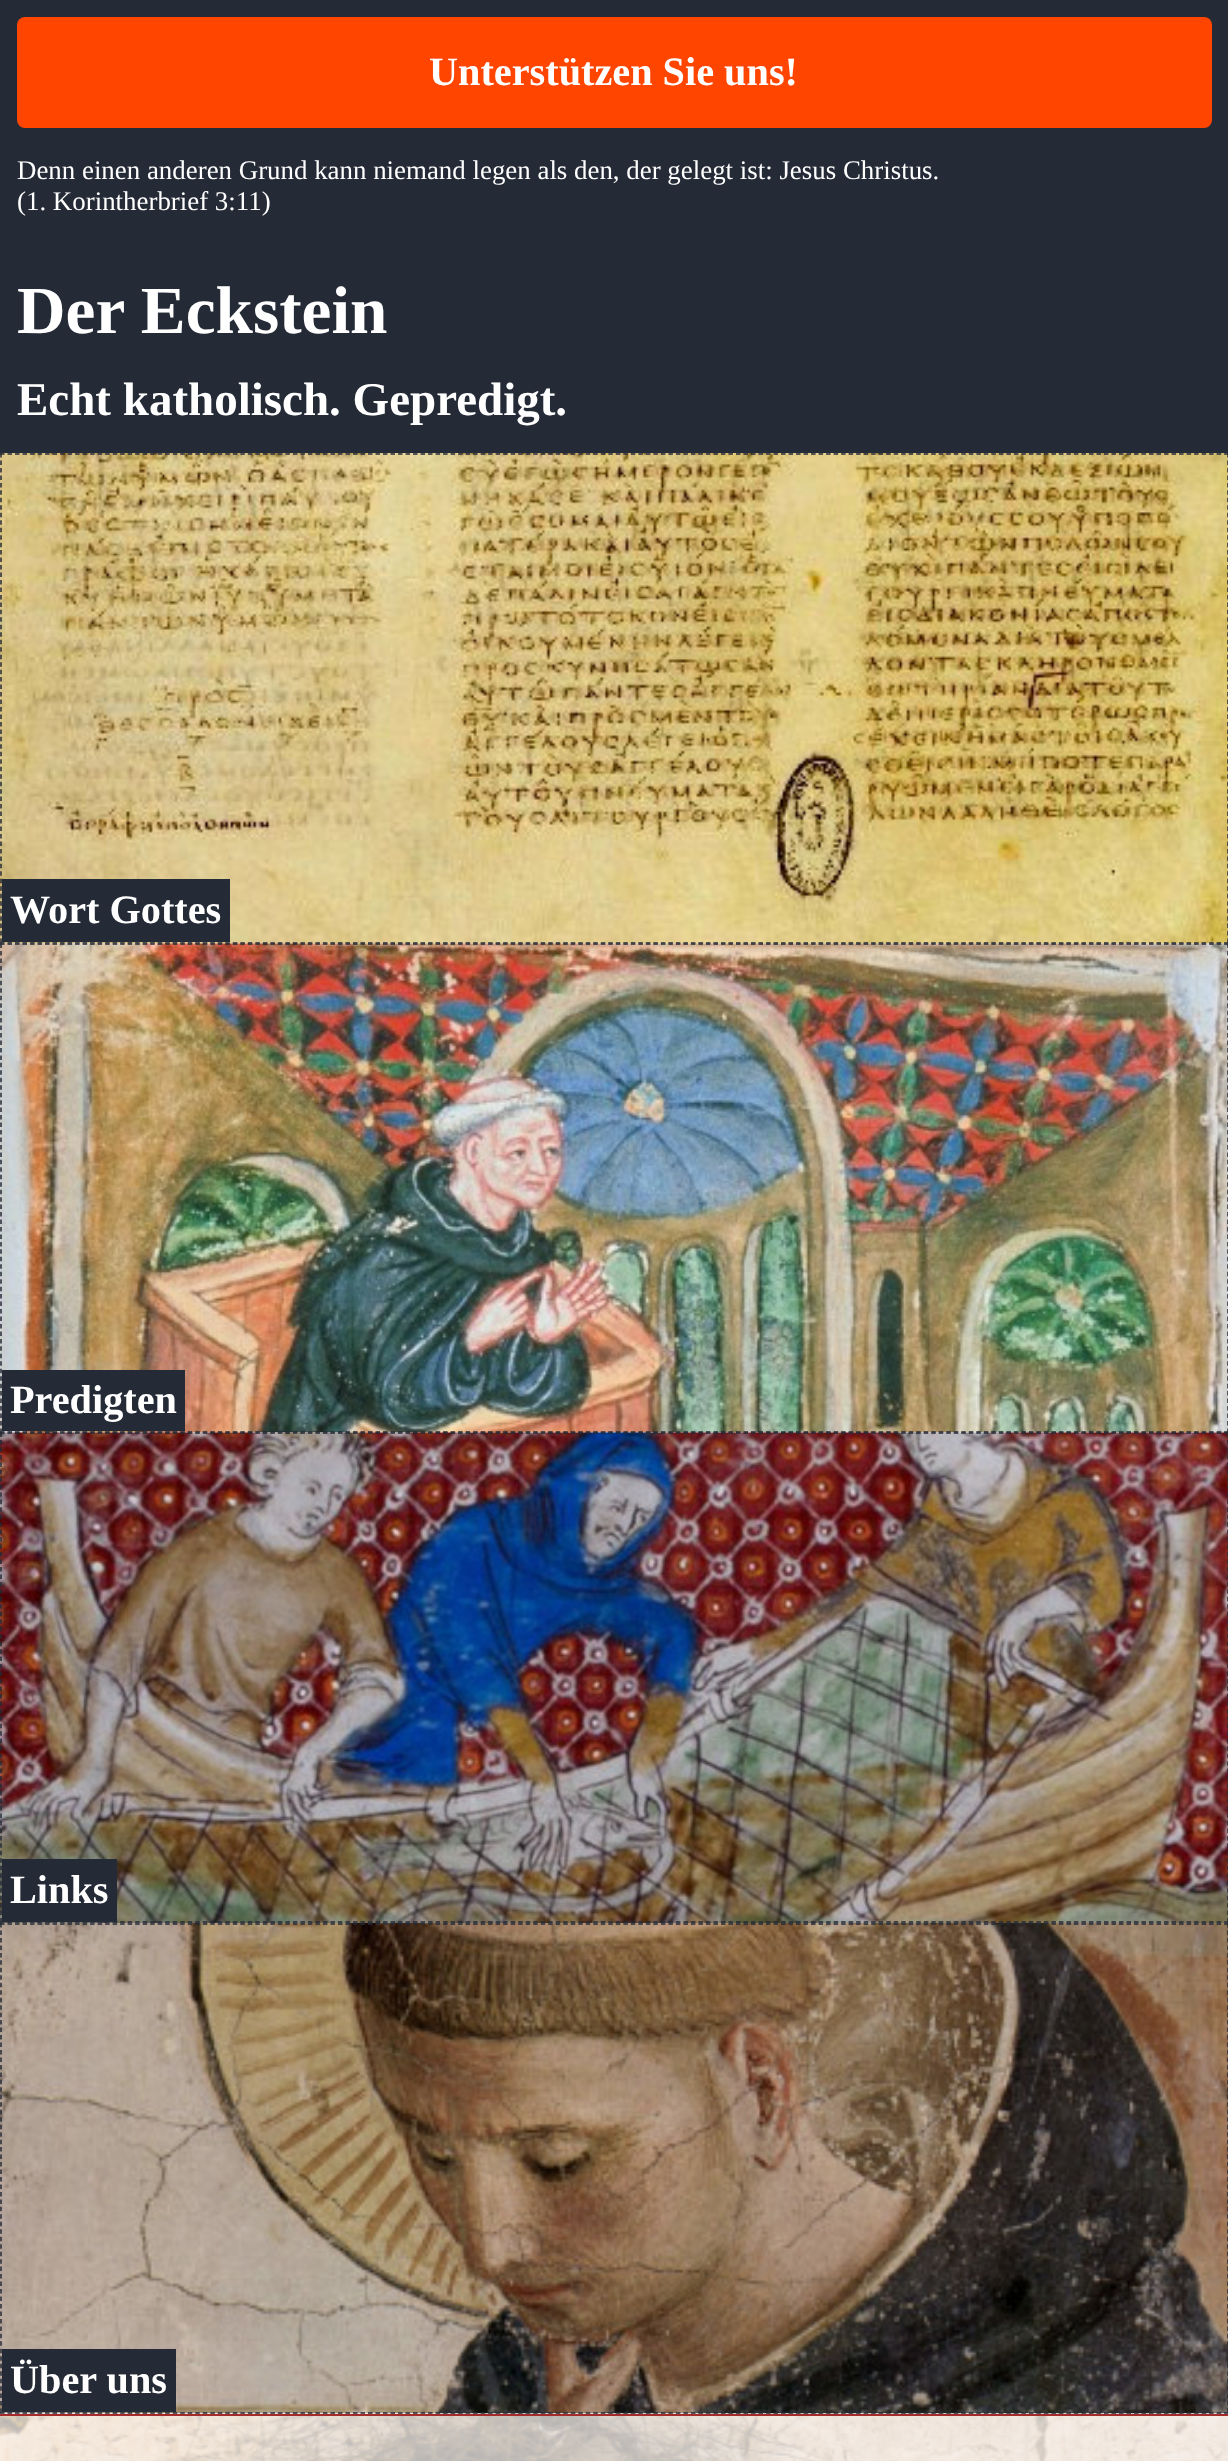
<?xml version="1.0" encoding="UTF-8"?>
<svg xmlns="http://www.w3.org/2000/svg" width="1228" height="2461">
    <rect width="100%" height="100%" fill="#FFFFFF"/>
    <image x="0" y="2416" width="1228" height="45" href="img_01.png"/>
    <rect x="0" y="0" width="1228" height="453" fill="#242A36"/>
    <rect x="17" y="17" width="1195" height="111" rx="8" fill="#FF4500"/>
    <text x="429" y="85" font-family="Liberation Serif" font-size="40.25" font-weight="700" fill="#FFFFFF">Unterstützen Sie uns!</text>
    <text font-family="Liberation Serif" font-size="26.9" fill="#FFFFFF">
        <tspan x="17" y="179">Denn einen anderen Grund kann niemand legen als den, der gelegt ist: Jesus Christus.</tspan>
        <tspan x="17" y="210">(1. Korintherbrief 3:11)</tspan>
    </text>
    <text x="17" y="333" font-family="Liberation Serif" font-size="67.25" font-weight="700" fill="#FFFFFF">Der Eckstein</text>
    <text x="17" y="415" font-family="Liberation Serif" font-size="47" font-weight="700" fill="#FFFFFF">Echt katholisch. Gepredigt.</text>
    <rect x="0" y="2414" width="1228" height="2" fill="#A52A2A"/>
    <image x="0" y="453" width="1228" height="491" href="img_02.png"/>
    <path d="M 0 454 H 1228.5" fill="none" stroke="#242A36" stroke-width="1.5" stroke-dasharray="4.5 3.01"/>
    <path d="M 1228 453 V 943.5" fill="none" stroke="#242A36" stroke-width="1.5" stroke-dasharray="4.5 2.97"/>
    <path d="M 0 943 H 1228.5" fill="none" stroke="#242A36" stroke-width="1.5" stroke-dasharray="4.5 3.01"/>
    <path d="M 1 453 V 943.5" fill="none" stroke="#242A36" stroke-width="1.5" stroke-dasharray="4.5 2.97"/>
    <rect x="2" y="879" width="228" height="63" fill="#242A36"/>
    <text x="10" y="923" font-family="Liberation Serif" font-size="40.25" font-weight="700" fill="#FFFFFF">Wort Gottes</text>
    <image x="0" y="943" width="1228" height="490" href="img_03.png"/>
    <path d="M 0 944 H 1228.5" fill="none" stroke="#242A36" stroke-width="1.5" stroke-dasharray="4.5 3.01"/>
    <path d="M 1228 943.5 V 1432.5" fill="none" stroke="#242A36" stroke-width="1.5" stroke-dasharray="4.5 2.96"/>
    <path d="M 0 1432 H 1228.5" fill="none" stroke="#242A36" stroke-width="1.5" stroke-dasharray="4.5 3.01"/>
    <path d="M 1 943.5 V 1432.5" fill="none" stroke="#242A36" stroke-width="1.5" stroke-dasharray="4.5 2.96"/>
    <rect x="2" y="1370" width="183" height="61" fill="#242A36"/>
    <text x="10" y="1413" font-family="Liberation Serif" font-size="40.25" font-weight="700" fill="#FFFFFF">Predigten</text>
    <image x="0" y="1432" width="1228" height="491" href="img_04.png"/>
    <path d="M 0 1433 H 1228.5" fill="none" stroke="#242A36" stroke-width="1.5" stroke-dasharray="4.5 3.01"/>
    <path d="M 1228 1432.5 V 1923" fill="none" stroke="#242A36" stroke-width="1.5" stroke-dasharray="4.5 2.97"/>
    <path d="M 0 1922 H 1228.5" fill="none" stroke="#242A36" stroke-width="1.5" stroke-dasharray="4.5 3.01"/>
    <path d="M 1 1432.5 V 1923" fill="none" stroke="#242A36" stroke-width="1.5" stroke-dasharray="4.5 2.97"/>
    <rect x="2" y="1859" width="115" height="63" fill="#242A36"/>
    <text x="10" y="1903" font-family="Liberation Serif" font-size="40.25" font-weight="700" fill="#FFFFFF">Links</text>
    <image x="0" y="1923" width="1228" height="491" href="img_05.png"/>
    <path d="M 0 1924 H 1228.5" fill="none" stroke="#242A36" stroke-width="1.5" stroke-dasharray="4.5 3.01"/>
    <path d="M 1228 1923 V 2413.5" fill="none" stroke="#242A36" stroke-width="1.5" stroke-dasharray="4.5 2.97"/>
    <path d="M 0 2413 H 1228.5" fill="none" stroke="#242A36" stroke-width="1.5" stroke-dasharray="4.5 3.01"/>
    <path d="M 1 1923 V 2413.5" fill="none" stroke="#242A36" stroke-width="1.5" stroke-dasharray="4.5 2.97"/>
    <rect x="2" y="2349" width="174" height="63" fill="#242A36"/>
    <text x="10" y="2393" font-family="Liberation Serif" font-size="40.25" font-weight="700" fill="#FFFFFF">Über uns</text>
</svg>
